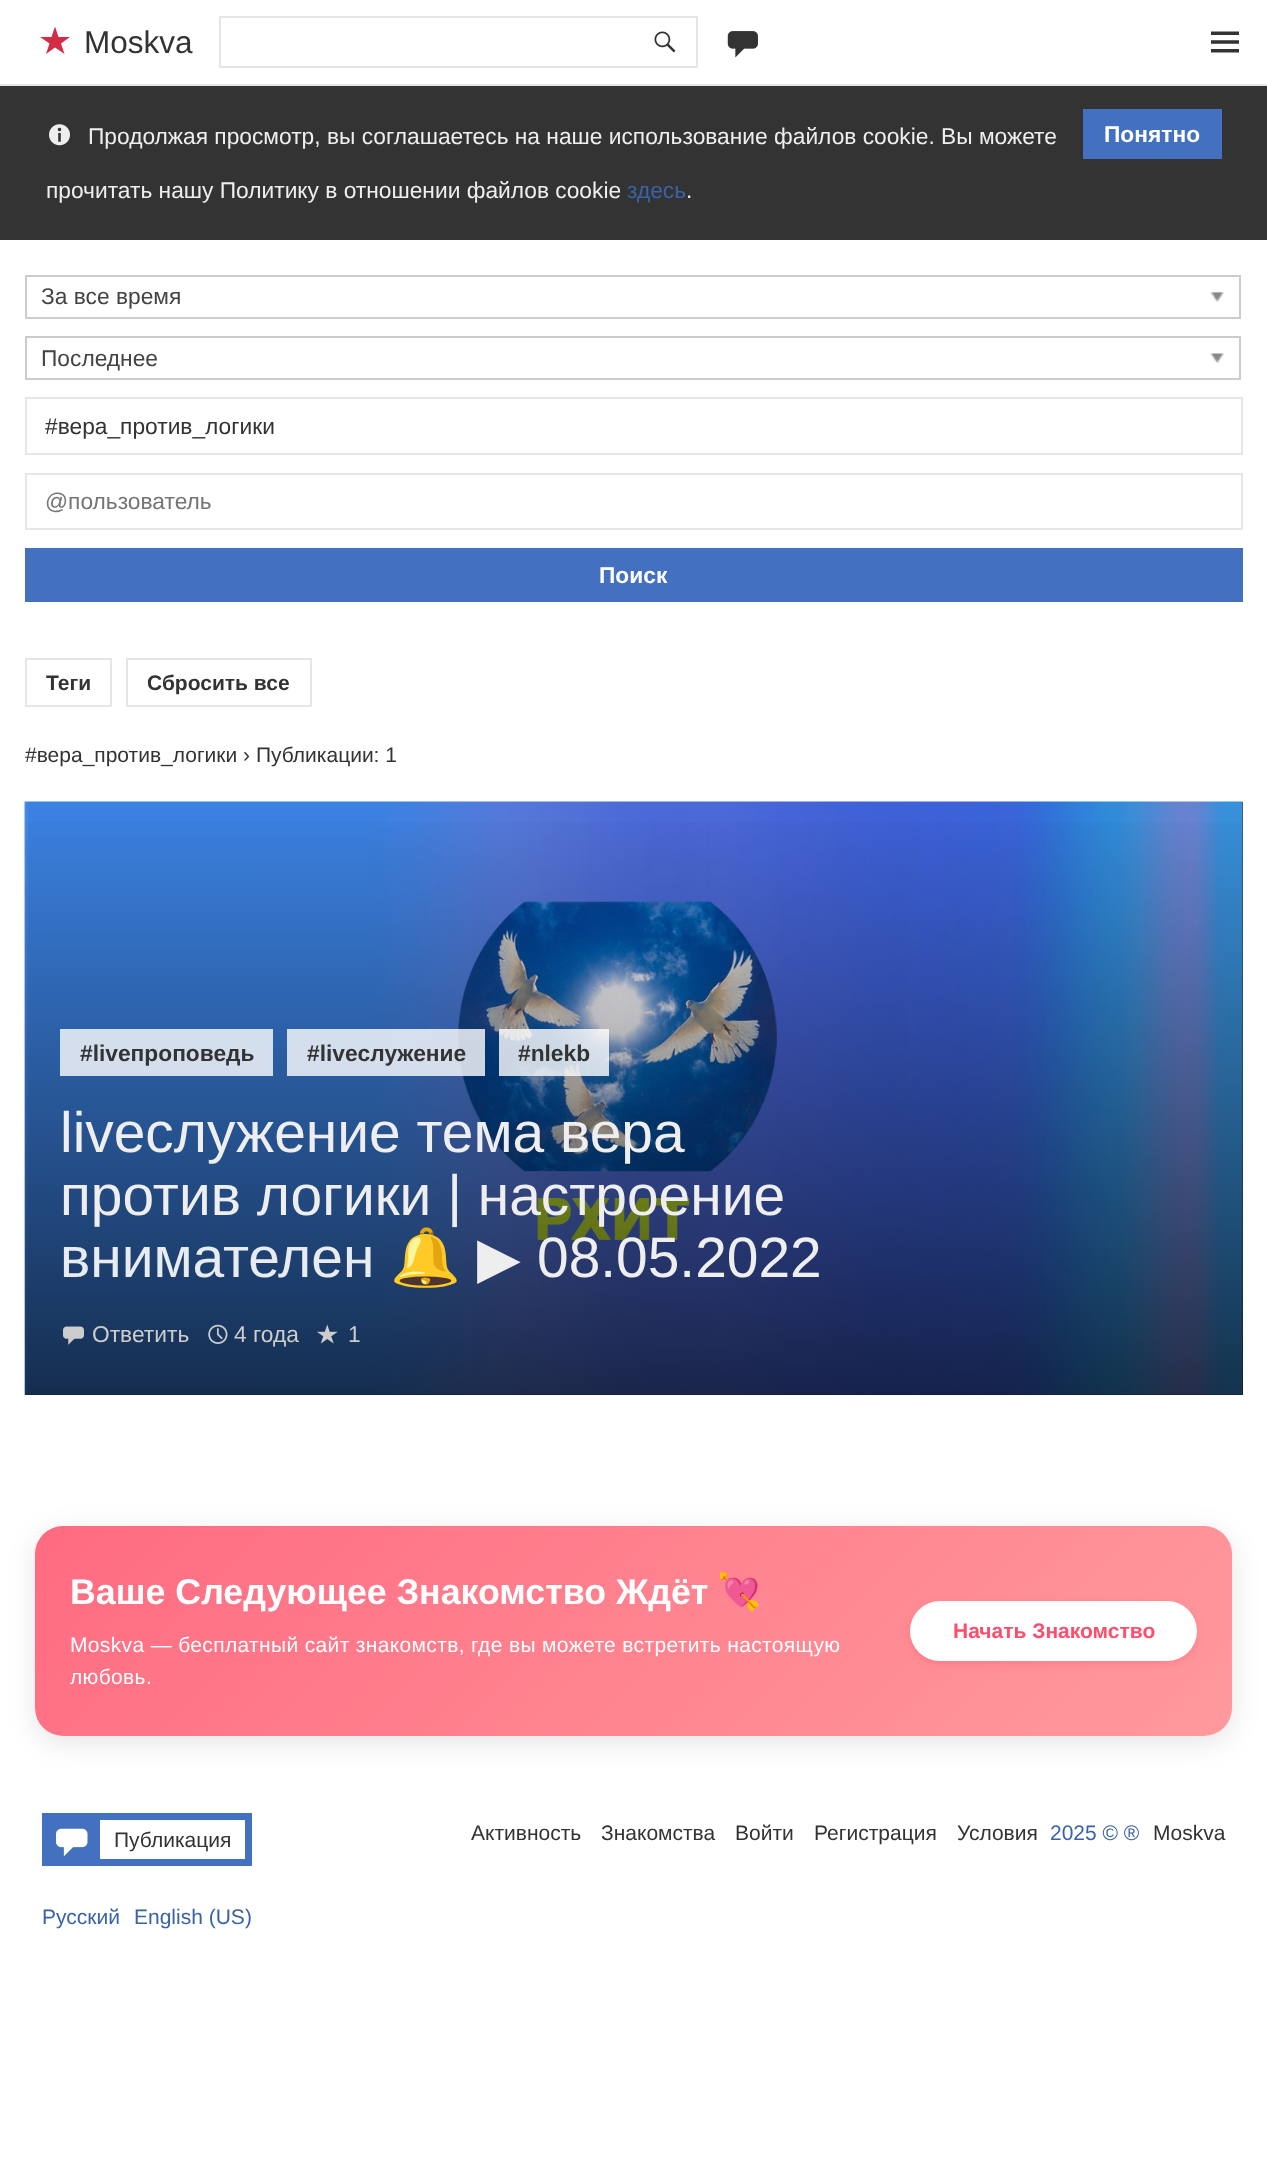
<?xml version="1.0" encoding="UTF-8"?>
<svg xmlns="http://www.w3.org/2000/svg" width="1267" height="2174">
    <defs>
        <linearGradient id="g1" gradientUnits="userSpaceOnUse" x1="634" y1="802" x2="634" y2="1395"><stop offset="0" stop-color="#000000" stop-opacity="0"/><stop offset="1" stop-color="#000000" stop-opacity="0.65"/></linearGradient>
        <filter id="blur1" x="-50%" y="-200%" width="200%" height="500%"><feGaussianBlur stdDeviation="14"/></filter>
        <linearGradient id="g2" gradientUnits="userSpaceOnUse" x1="282" y1="1279" x2="985" y2="1983"><stop offset="0" stop-color="#FF6B81"/><stop offset="1" stop-color="#FF9A9E"/></linearGradient>
        <filter id="blur2" x="-50%" y="-200%" width="200%" height="500%"><feGaussianBlur stdDeviation="5"/></filter>
    </defs>
    <rect width="100%" height="100%" fill="#FFFFFF"/>
    <rect x="0" y="84" width="1267" height="2" fill="#E6E6E6"/>
    <path d="M 40 37 L 49.5 43.5 L 46 54 L 55 47.5 L 64.5 54 L 61 43.5 L 70 37 H 58.5 L 55 26.5 L 51.5 37 Z" fill="#D32C45"/>
    <text x="84" y="53" font-family="Liberation Sans" font-size="31.5" fill="#333333">Moskva</text>
    <rect x="220" y="17" width="477" height="50" fill="none" stroke="#E6E6E6" stroke-width="2"/>
    <image x="654" y="31" width="22" height="22" href="img_01.png"/>
    <image x="727" y="31" width="31" height="27" href="img_02.png"/>
    <image x="1211" y="31" width="28" height="22" href="img_03.png"/>
    <rect x="0" y="86" width="1267" height="154" fill="#333333"/>
    <image x="49" y="124" width="21" height="22" href="img_04.png"/>
    <text x="88" y="144" font-family="Liberation Sans" font-size="22.75" fill="#EEEEEE">Продолжая просмотр, вы соглашаетесь на наше использование файлов cookie. Вы можете</text>
    <rect x="1083" y="109" width="139" height="50" fill="#4371BF"/>
    <text x="1104" y="142" font-family="Liberation Sans" font-size="22.75" font-weight="700" fill="#FFFFFF">Понятно</text>
    <text x="46" y="198" font-family="Liberation Sans" font-size="22.75" fill="#EEEEEE">прочитать нашу Политику в отношении файлов cookie</text>
    <text x="627" y="198" font-family="Liberation Sans" font-size="22.75" fill="#3A62A6">здесь</text>
    <text x="686" y="198" font-family="Liberation Sans" font-size="22.75" fill="#EEEEEE">.</text>
    <rect x="26" y="276" width="1214" height="42" fill="none" stroke="#CCCCCC" stroke-width="2"/>
    <text x="41" y="304" font-family="Liberation Sans" font-size="22.75" fill="#444444">За все время</text>
    <image x="1210" y="291" width="14" height="11" href="img_05.png"/>
    <rect x="26" y="337" width="1214" height="42" fill="none" stroke="#CCCCCC" stroke-width="2"/>
    <text x="41" y="366" font-family="Liberation Sans" font-size="22.75" fill="#444444">Последнее</text>
    <image x="1210" y="353" width="14" height="11" href="img_06.png"/>
    <rect x="26" y="398" width="1216" height="56" fill="none" stroke="#E6E6E6" stroke-width="2"/>
    <text x="45" y="434" font-family="Liberation Sans" font-size="22.75" fill="#333333">#вера_против_логики</text>
    <rect x="26" y="474" width="1216" height="55" fill="none" stroke="#E6E6E6" stroke-width="2"/>
    <text x="45" y="509" font-family="Liberation Sans" font-size="22.75" fill="#757575">@пользователь</text>
    <rect x="25" y="548" width="1218" height="54" fill="#4371BF"/>
    <text x="599" y="583" font-family="Liberation Sans" font-size="22.75" font-weight="700" fill="#FFFFFF">Поиск</text>
    <rect x="26" y="659" width="85" height="47" fill="none" stroke="#E6E6E6" stroke-width="2"/>
    <text x="46" y="690" font-family="Liberation Sans" font-size="21" font-weight="700" fill="#333333">Теги</text>
    <rect x="127" y="659" width="184" height="47" fill="none" stroke="#E6E6E6" stroke-width="2"/>
    <text x="147" y="690" font-family="Liberation Sans" font-size="21" font-weight="700" fill="#333333">Сбросить все</text>
    <text x="25" y="762" font-family="Liberation Sans" font-size="21" fill="#333333">#вера_против_логики › Публикации: 1</text>
    <rect x="25" y="802" width="1218" height="593" fill="#333333"/>
    <image x="24" y="801" width="1219" height="594" href="img_07.png"/>
    <rect x="25" y="822" width="1218" height="573" fill="url(#g1)"/>
    <rect x="60" y="1029" width="213" height="47" fill="#FFFFFF" fill-opacity="0.8"/>
    <text x="80" y="1061" font-family="Liberation Sans" font-size="22.75" font-weight="700" fill="#333333">#liveпроповедь</text>
    <rect x="287" y="1029" width="198" height="47" fill="#FFFFFF" fill-opacity="0.8"/>
    <text x="307" y="1061" font-family="Liberation Sans" font-size="22.75" font-weight="700" fill="#333333">#liveслужение</text>
    <rect x="499" y="1029" width="110" height="47" fill="#FFFFFF" fill-opacity="0.8"/>
    <text x="518" y="1061" font-family="Liberation Sans" font-size="22.75" font-weight="700" fill="#333333">#nlekb</text>
    <text font-family="Liberation Sans" font-size="56.9" fill="#EEEEEE">
        <tspan x="60" y="1152">liveслужение тема вера</tspan>
        <tspan x="60" y="1215">против логики | настроение</tspan>
    </text>
    <text x="60" y="1277" font-family="Liberation Sans" font-size="56.9" fill="#E8ECF1">внимателен</text>
    <text x="390" y="1277" font-family="Noto Color Emoji" font-size="56.9" fill="#EEEEEE">🔔</text>
    <text x="477" y="1277" font-family="DejaVu Sans" font-size="56.9" fill="#EEEEEE">▶</text>
    <text x="537" y="1277" font-family="Liberation Sans" font-size="56.9" fill="#EEEEEE">08.05.2022</text>
    <image x="63" y="1326" width="21" height="19" href="img_08.png"/>
    <text x="92" y="1342" font-family="Liberation Sans" font-size="22.75" fill="#CCCCCC">Ответить</text>
    <image x="208" y="1324" width="20" height="20" href="img_09.png"/>
    <text x="234" y="1342" font-family="Liberation Sans" font-size="22.75" fill="#CCCCCC">4 года</text>
    <image x="316" y="1324" width="22" height="20" href="img_10.png"/>
    <text x="348" y="1342" font-family="Liberation Sans" font-size="22.75" fill="#CCCCCC">1</text>
    <rect x="35" y="1533" width="1197" height="210" rx="28" fill="#000000" fill-opacity="0.1" filter="url(#blur1)"/>
    <rect x="35" y="1526" width="1197" height="210" rx="28" fill="url(#g2)"/>
    <text x="70" y="1604" font-family="Liberation Sans" font-size="35.75" font-weight="700" fill="#FFFFFF">Ваше Следующее Знакомство Ждёт</text>
    <text x="717" y="1604" font-family="Noto Color Emoji" font-size="35.75" font-weight="700" fill="#FFFFFF">💘</text>
    <text font-family="Liberation Sans" font-size="21" letter-spacing="0.35" fill="#FFFFFF">
        <tspan x="70" y="1652">Moskva — бесплатный сайт знакомств, где вы можете встретить настоящую</tspan>
        <tspan x="70" y="1684">любовь.</tspan>
    </text>
    <rect x="910" y="1605" width="287" height="59" rx="29.5" fill="#FF4B64" fill-opacity="0.3" filter="url(#blur2)"/>
    <rect x="910" y="1601" width="287" height="60" rx="30" fill="#FFFFFF"/>
    <text x="953" y="1638" font-family="Liberation Sans" font-size="21" font-weight="700" fill="#FF4D6D">Начать Знакомство</text>
    <rect x="42" y="1813" width="210" height="53" fill="#4371BF"/>
    <image x="56" y="1828" width="32" height="29" href="img_11.png"/>
    <rect x="100" y="1820" width="145" height="39" fill="#FFFFFF"/>
    <text x="114" y="1847" font-family="Liberation Sans" font-size="21" fill="#333333">Публикация</text>
    <text x="471" y="1840" font-family="Liberation Sans" font-size="21" fill="#333333">Активность</text>
    <text x="601" y="1840" font-family="Liberation Sans" font-size="21" fill="#333333">Знакомства</text>
    <text x="735" y="1840" font-family="Liberation Sans" font-size="21" fill="#333333">Войти</text>
    <text x="814" y="1840" font-family="Liberation Sans" font-size="21" fill="#333333">Регистрация</text>
    <text x="957" y="1840" font-family="Liberation Sans" font-size="21" fill="#333333">Условия</text>
    <text x="1050" y="1840" font-family="Liberation Sans" font-size="21" fill="#3A62A6">2025 © ®</text>
    <text x="1153" y="1840" font-family="Liberation Sans" font-size="21" fill="#333333">Moskva</text>
    <text x="42" y="1924" font-family="Liberation Sans" font-size="21" fill="#3A62A6">Русский</text>
    <text x="134" y="1924" font-family="Liberation Sans" font-size="21" fill="#3A62A6">English (US)</text>
</svg>
